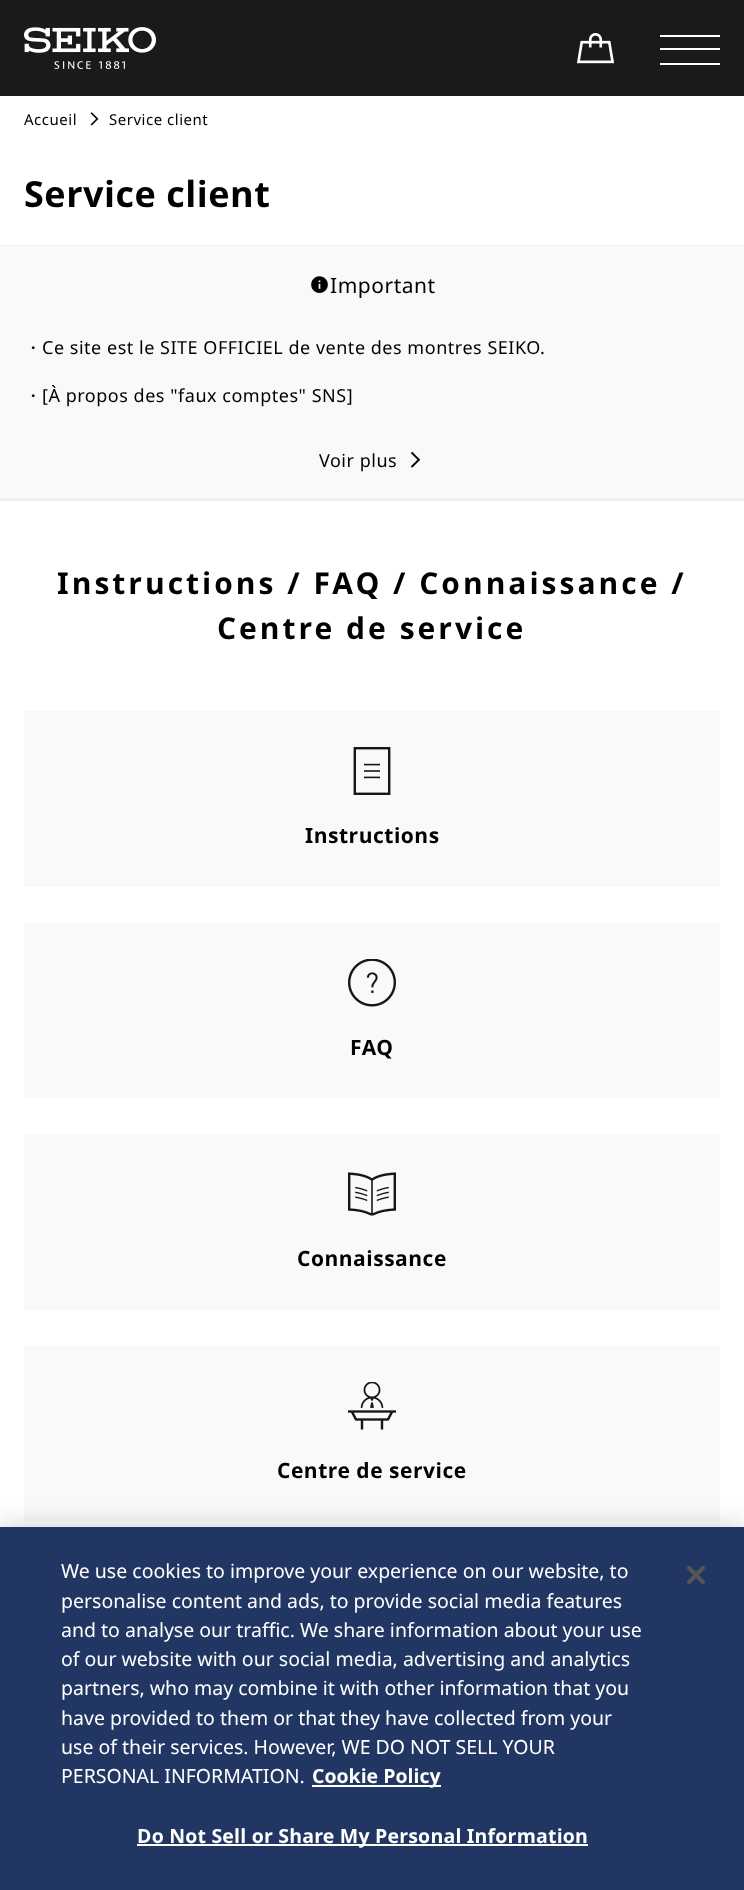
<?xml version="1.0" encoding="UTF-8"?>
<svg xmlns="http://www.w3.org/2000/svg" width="744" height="1890">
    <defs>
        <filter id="blur1" x="-50%" y="-200%" width="200%" height="500%"><feGaussianBlur stdDeviation="13.5"/></filter>
    </defs>
    <rect width="100%" height="100%" fill="#FFFFFF"/>
    <rect x="0" y="0" width="744" height="96" fill="#1A1A1A"/>
    <image x="24" y="27" width="132" height="42" href="img_01.png"/>
    <image x="576" y="33" width="39" height="31" href="img_02.png"/>
    <rect x="660" y="35" width="60" height="2" fill="#FFFFFF"/>
    <rect x="660" y="48" width="60" height="2" fill="#FFFFFF"/>
    <rect x="660" y="63" width="60" height="2" fill="#FFFFFF"/>
    <text x="24" y="125" font-family="Noto Sans" font-size="15" letter-spacing="0.52" fill="#000000">Accueil</text>
    <image x="90" y="112" width="9" height="14" href="img_03.png"/>
    <text x="109" y="125" font-family="Noto Sans" font-size="15" letter-spacing="0.52" fill="#000000">Service client</text>
    <rect x="0" y="245" width="744" height="1" fill="#F0F0F0"/>
    <text x="24" y="207" font-family="Noto Sans" font-size="36" font-weight="700" letter-spacing="0.52" fill="#000000">Service client</text>
    <rect x="0" y="246" width="744" height="252" fill="#F9F9F9"/>
    <rect x="0" y="498" width="744" height="3" fill="#F0F0F0"/>
    <image x="311" y="276" width="17" height="17" href="img_04.png"/>
    <text x="330" y="293" font-family="Noto Sans" font-size="21" letter-spacing="0.52" fill="#000000">Important</text>
    <text x="24" y="354" font-family="WenQuanYi Zen Hei" font-size="18" font-weight="500" letter-spacing="0.52" fill="#000000">・</text>
    <text x="42" y="354" font-family="Noto Sans" font-size="18" letter-spacing="0.52" fill="#000000">Ce site est le SITE OFFICIEL de vente des montres SEIKO.</text>
    <text x="24" y="402" font-family="WenQuanYi Zen Hei" font-size="18" font-weight="500" letter-spacing="0.52" fill="#000000">・</text>
    <text x="42" y="402" font-family="Noto Sans" font-size="18" letter-spacing="0.52" fill="#000000">[À propos des "faux comptes" SNS]</text>
    <text x="319" y="467" font-family="Noto Sans" font-size="18" letter-spacing="0.52" fill="#000000">Voir plus</text>
    <image x="410" y="451" width="11" height="17" href="img_05.png"/>
    <text x="57" y="594" font-family="Noto Sans" font-size="30" font-weight="700" letter-spacing="3" fill="#000000">Instructions / FAQ / Connaissance /</text>
    <text x="217" y="639" font-family="Noto Sans" font-size="30" font-weight="700" letter-spacing="3" fill="#000000">Centre de service</text>
    <rect x="24" y="711" width="696" height="176" fill="#F9F9F9"/>
    <image x="353" y="747" width="38" height="48" href="img_06.png"/>
    <text x="305" y="843" font-family="Noto Sans" font-size="21" font-weight="700" letter-spacing="0.52" fill="#000000">Instructions</text>
    <rect x="24" y="923" width="696" height="175" fill="#F9F9F9"/>
    <image x="348" y="959" width="48" height="48" href="img_07.png"/>
    <text x="350" y="1055" font-family="Noto Sans" font-size="21" font-weight="700" letter-spacing="0.52" fill="#000000">FAQ</text>
    <rect x="24" y="1134" width="696" height="176" fill="#F9F9F9"/>
    <image x="348" y="1172" width="48" height="44" href="img_08.png"/>
    <text x="297" y="1266" font-family="Noto Sans" font-size="21" font-weight="700" letter-spacing="0.52" fill="#000000">Connaissance</text>
    <rect x="24" y="1346" width="696" height="175" fill="#F9F9F9"/>
    <image x="348" y="1382" width="48" height="48" href="img_09.png"/>
    <text x="277" y="1478" font-family="Noto Sans" font-size="21" font-weight="700" letter-spacing="0.52" fill="#000000">Centre de service</text>
    <rect x="0" y="1527" width="744" height="363" fill="#000000" fill-opacity="0.2" filter="url(#blur1)"/>
    <rect x="0" y="1527" width="744" height="363" fill="#213662"/>
    <text font-family="Noto Sans" font-size="19.5" fill="#FFFFFF">
        <tspan x="61" y="1578">We use cookies to improve your experience on our website, to</tspan>
        <tspan x="61" y="1608">personalise content and ads, to provide social media features</tspan>
        <tspan x="61" y="1637">and to analyse our traffic. We share information about your use</tspan>
        <tspan x="61" y="1666">of our website with our social media, advertising and analytics</tspan>
        <tspan x="61" y="1695">partners, who may combine it with other information that you</tspan>
        <tspan x="61" y="1725">have provided to them or that they have collected from your</tspan>
        <tspan x="61" y="1754">use of their services. However, WE DO NOT SELL YOUR</tspan>
        <tspan x="61" y="1783">PERSONAL INFORMATION.</tspan>
    </text>
    <rect x="312" y="1785" width="129" height="2" fill="#FFFFFF"/>
    <text x="312" y="1783" font-family="Noto Sans" font-size="19.5" font-weight="700" fill="#FFFFFF">Cookie Policy</text>
    <rect x="137" y="1844" width="451" height="2" fill="#FFFFFF"/>
    <text x="137" y="1843" font-family="Noto Sans" font-size="19.5" font-weight="700" letter-spacing="0.2" fill="#FFFFFF">Do Not Sell or Share My Personal Information</text>
    <image x="687" y="1566" width="18" height="18" href="img_10.png"/>
</svg>
